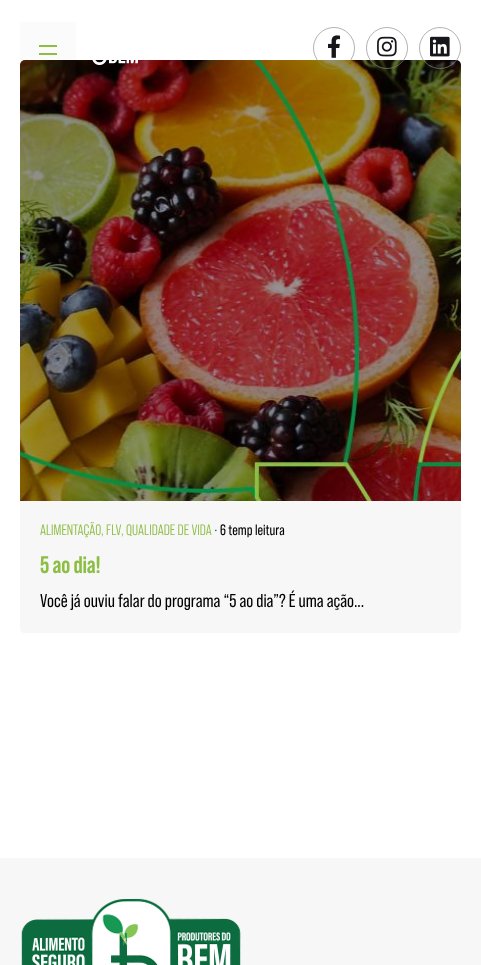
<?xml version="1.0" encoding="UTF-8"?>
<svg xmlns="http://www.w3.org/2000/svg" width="481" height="965">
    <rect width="100%" height="100%" fill="#FFFFFF"/>
    <image x="20" y="60" width="441" height="441" href="img_05.png"/>
    <rect x="20" y="22" width="56" height="56" fill="#888888" fill-opacity="0.03"/>
    <rect x="39" y="45" width="18" height="2" fill="#8DBE44"/>
    <rect x="39" y="53" width="18" height="2" fill="#8DBE44"/>
    <image x="92" y="60" width="46" height="5" href="img_01.png"/>
    <circle cx="334" cy="48" r="20.5" fill="none" stroke="#888888" stroke-opacity="0.65"/>
    <image x="328" y="35" width="12" height="23" href="img_02.png"/>
    <circle cx="387" cy="48" r="20.5" fill="none" stroke="#888888" stroke-opacity="0.65"/>
    <image x="377" y="36" width="20" height="21" href="img_03.png"/>
    <circle cx="440" cy="48" r="20.5" fill="none" stroke="#888888" stroke-opacity="0.65"/>
    <image x="430" y="36" width="20" height="21" href="img_04.png"/>
    <path d="M 20 501 H 461 V 628 C 461 631 459 633 456 633 H 25 C 22 633 20 631 20 628 Z" fill="#F7F7F7"/>
    <text x="40" y="535" font-family="Bebas Neue" font-size="15" fill="#8DBE44">ALIMENTAÇÃO, FLV</text>
    <text x="121" y="535" font-family="Bebas Neue" font-size="15" fill="#8DBE44">, QUALIDADE DE VIDA</text>
    <text x="214" y="534" font-family="'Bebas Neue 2'" font-size="12" fill="#056A38">•</text>
    <text x="220" y="535" font-family="'Bebas Neue 2'" font-size="15" fill="#000000">6 temp leitura</text>
    <text x="40" y="573" font-family="Bebas Neue" font-size="24" font-weight="700" letter-spacing="-0.25" fill="#8DBE44">5 ao dia!</text>
    <text x="40" y="607" font-family="'Bebas Neue 2'" font-size="18.7" fill="#000000">Você já ouviu falar do programa “5 ao dia”? É uma ação...</text>
    <rect x="0" y="858" width="481" height="107" fill="#F7F7F7"/>
    <image x="21" y="898" width="220" height="67" href="img_06.png"/>
</svg>
